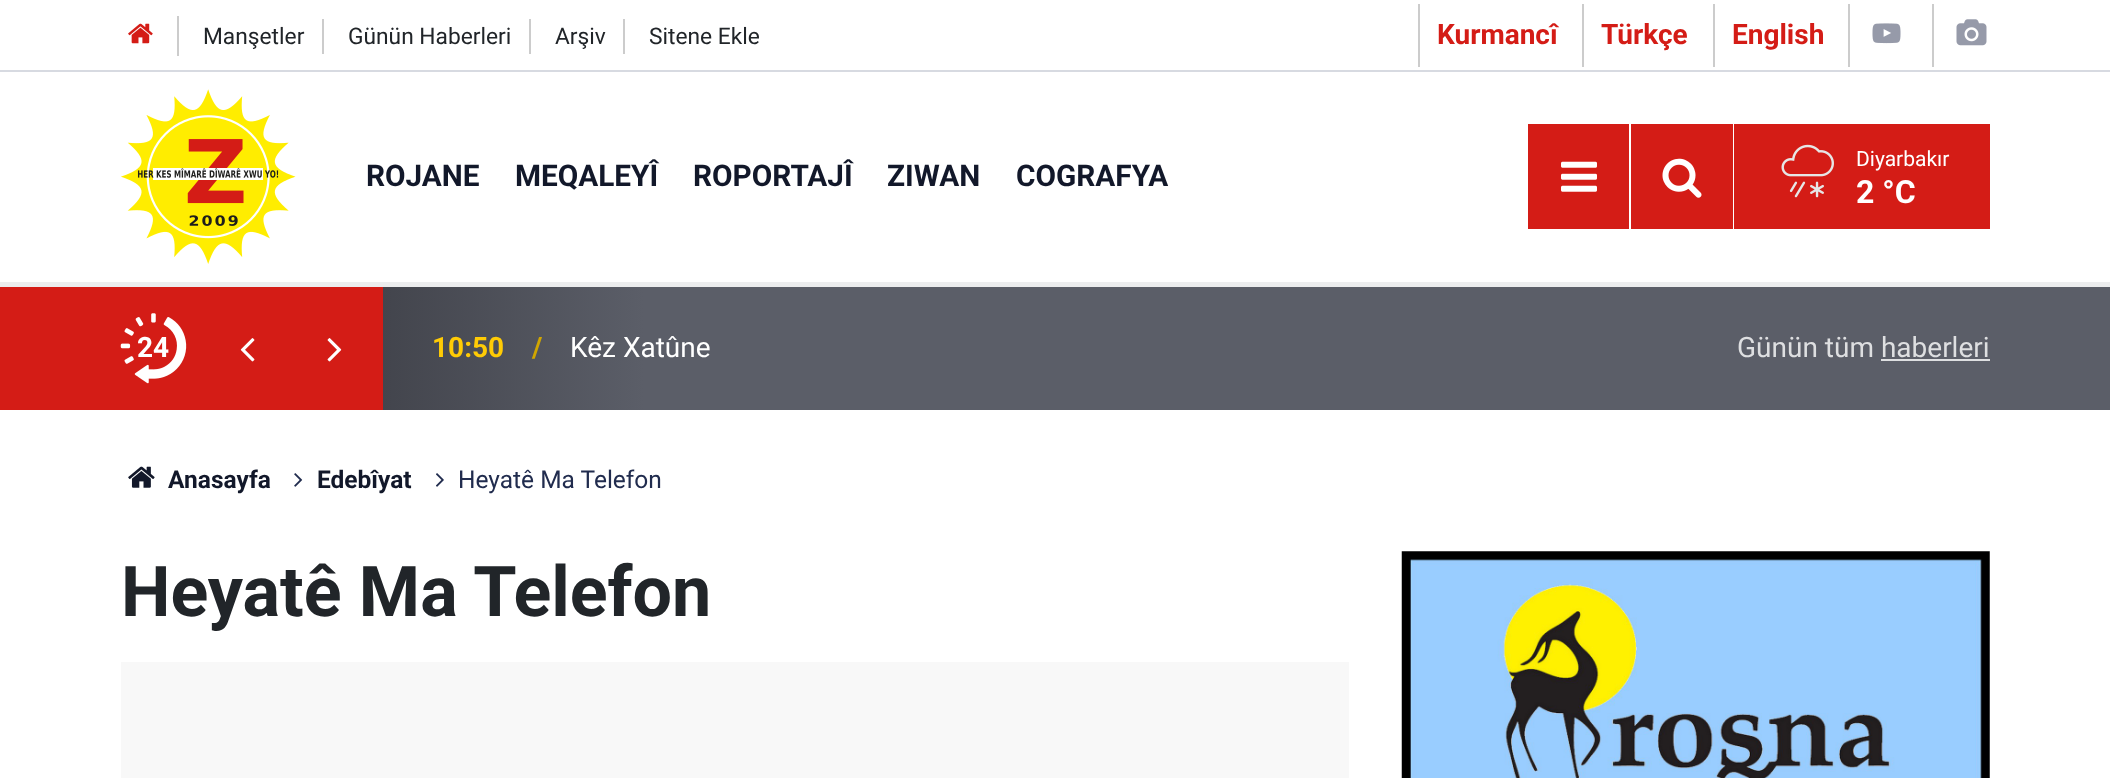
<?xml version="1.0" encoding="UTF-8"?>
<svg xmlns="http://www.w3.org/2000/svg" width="2110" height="778">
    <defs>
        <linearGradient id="g1" gradientUnits="userSpaceOnUse" x1="121" y1="348" x2="1990" y2="348"><stop offset="0.05" stop-color="#D41C16"/><stop offset="0.14" stop-color="#D41C16"/><stop offset="0.14" stop-color="#43454D"/><stop offset="0.28" stop-color="#5B5E68"/></linearGradient>
    </defs>
    <rect width="100%" height="100%" fill="#FFFFFF"/>
    <rect x="177" y="16" width="2" height="40" fill="#CCCCCC"/>
    <image x="128" y="23" width="25" height="21" href="img_01.png"/>
    <rect x="322" y="19" width="2" height="35" fill="#CCCCCC"/>
    <text x="203" y="44" font-family="Roboto" font-size="22.75" fill="#212529">Manşetler</text>
    <rect x="529" y="19" width="2" height="35" fill="#CCCCCC"/>
    <text x="348" y="44" font-family="Roboto" font-size="22.75" fill="#212529">Günün Haberleri</text>
    <rect x="623" y="19" width="2" height="35" fill="#CCCCCC"/>
    <text x="555" y="44" font-family="Roboto" font-size="22.75" fill="#212529">Arşiv</text>
    <text x="649" y="44" font-family="Roboto" font-size="22.75" fill="#212529">Sitene Ekle</text>
    <rect x="1418" y="4" width="2" height="63" fill="#CCCCCC"/>
    <text x="1437" y="44" font-family="Roboto" font-size="28" font-weight="700" fill="#D41C16">Kurmancî</text>
    <rect x="1582" y="4" width="2" height="63" fill="#CCCCCC"/>
    <text x="1601" y="44" font-family="Roboto" font-size="28" font-weight="700" fill="#D41C16">Türkçe</text>
    <rect x="1713" y="4" width="2" height="63" fill="#CCCCCC"/>
    <text x="1732" y="44" font-family="Roboto" font-size="28" font-weight="700" fill="#D41C16">English</text>
    <rect x="1848" y="4" width="2" height="63" fill="#CCCCCC"/>
    <image x="1872" y="23" width="29" height="21" href="img_02.png"/>
    <rect x="1932" y="4" width="2" height="63" fill="#CCCCCC"/>
    <image x="1956" y="19" width="31" height="27" href="img_03.png"/>
    <rect x="0" y="70" width="2110" height="2" fill="#D7DAE1"/>
    <rect x="0" y="282" width="2110" height="5" fill="#ECEDEE"/>
    <image x="121" y="89" width="175" height="175" href="img_04.png"/>
    <text x="366" y="186" font-family="Roboto" font-size="29.75" font-weight="700" fill="#12182A">ROJANE</text>
    <text x="515" y="186" font-family="Roboto" font-size="29.75" font-weight="700" fill="#12182A">MEQALEYÎ</text>
    <text x="693" y="186" font-family="Roboto" font-size="29.75" font-weight="700" fill="#12182A">ROPORTAJÎ</text>
    <text x="887" y="186" font-family="Roboto" font-size="29.75" font-weight="700" fill="#12182A">ZIWAN</text>
    <text x="1016" y="186" font-family="Roboto" font-size="29.75" font-weight="700" fill="#12182A">COGRAFYA</text>
    <rect x="1528" y="124" width="101" height="105" fill="#D41C16"/>
    <image x="1561" y="161" width="36" height="31" href="img_05.png"/>
    <rect x="1631" y="124" width="102" height="105" fill="#D41C16"/>
    <image x="1662" y="158" width="40" height="40" href="img_06.png"/>
    <rect x="1734" y="124" width="256" height="105" fill="#D41C16"/>
    <image x="1781" y="144" width="53" height="54" href="img_07.png"/>
    <text x="1856" y="166" font-family="Roboto" font-size="21" fill="#FFFFFF">Diyarbakır</text>
    <text x="1856" y="203" font-family="Roboto" font-size="32" font-weight="700" fill="#FFFFFF">2 °C</text>
    <rect x="0" y="287" width="121" height="123" fill="#D41C16"/>
    <rect x="1990" y="287" width="120" height="123" fill="#5B5E68"/>
    <rect x="121" y="287" width="1869" height="123" fill="url(#g1)"/>
    <image x="120" y="313" width="67" height="71" href="img_08.png"/>
    <text x="137" y="357" font-family="Roboto" font-size="28" font-weight="700" fill="#FFFFFF">24</text>
    <image x="240" y="338" width="15" height="24" href="img_09.png"/>
    <image x="327" y="338" width="15" height="24" href="img_10.png"/>
    <text x="432" y="357" font-family="Roboto" font-size="28" font-weight="700" fill="#FFCB05">10:50</text>
    <text x="532" y="357" font-family="Roboto" font-size="28" font-weight="700" fill="#D1A600">/</text>
    <text x="570" y="357" font-family="Roboto" font-size="28" fill="#FFFFFF">Kêz Xatûne</text>
    <text x="1737" y="357" font-family="Roboto" font-size="28" fill="#DEDFE1">Günün tüm haberleri</text>
    <rect x="1881" y="359" width="109" height="2" fill="#DEDFE1"/>
    <image x="128" y="466" width="27" height="22" href="img_11.png"/>
    <text x="168" y="488" font-family="Roboto" font-size="24.5" font-weight="700" fill="#12182A">Anasayfa</text>
    <image x="294" y="473" width="9" height="14" href="img_12.png"/>
    <text x="317" y="488" font-family="Roboto" font-size="24.5" font-weight="700" fill="#12182A">Edebîyat</text>
    <image x="436" y="473" width="8" height="14" href="img_13.png"/>
    <text x="458" y="488" font-family="Roboto" font-size="24.5" fill="#212C4E">Heyatê Ma Telefon</text>
    <text x="121" y="616" font-family="Roboto" font-size="70" font-weight="700" fill="#212529">Heyatê Ma Telefon</text>
    <rect x="121" y="662" width="1228" height="116" fill="#F8F8F8"/>
    <image x="1401" y="551" width="589" height="227" href="img_14.png"/>
</svg>
